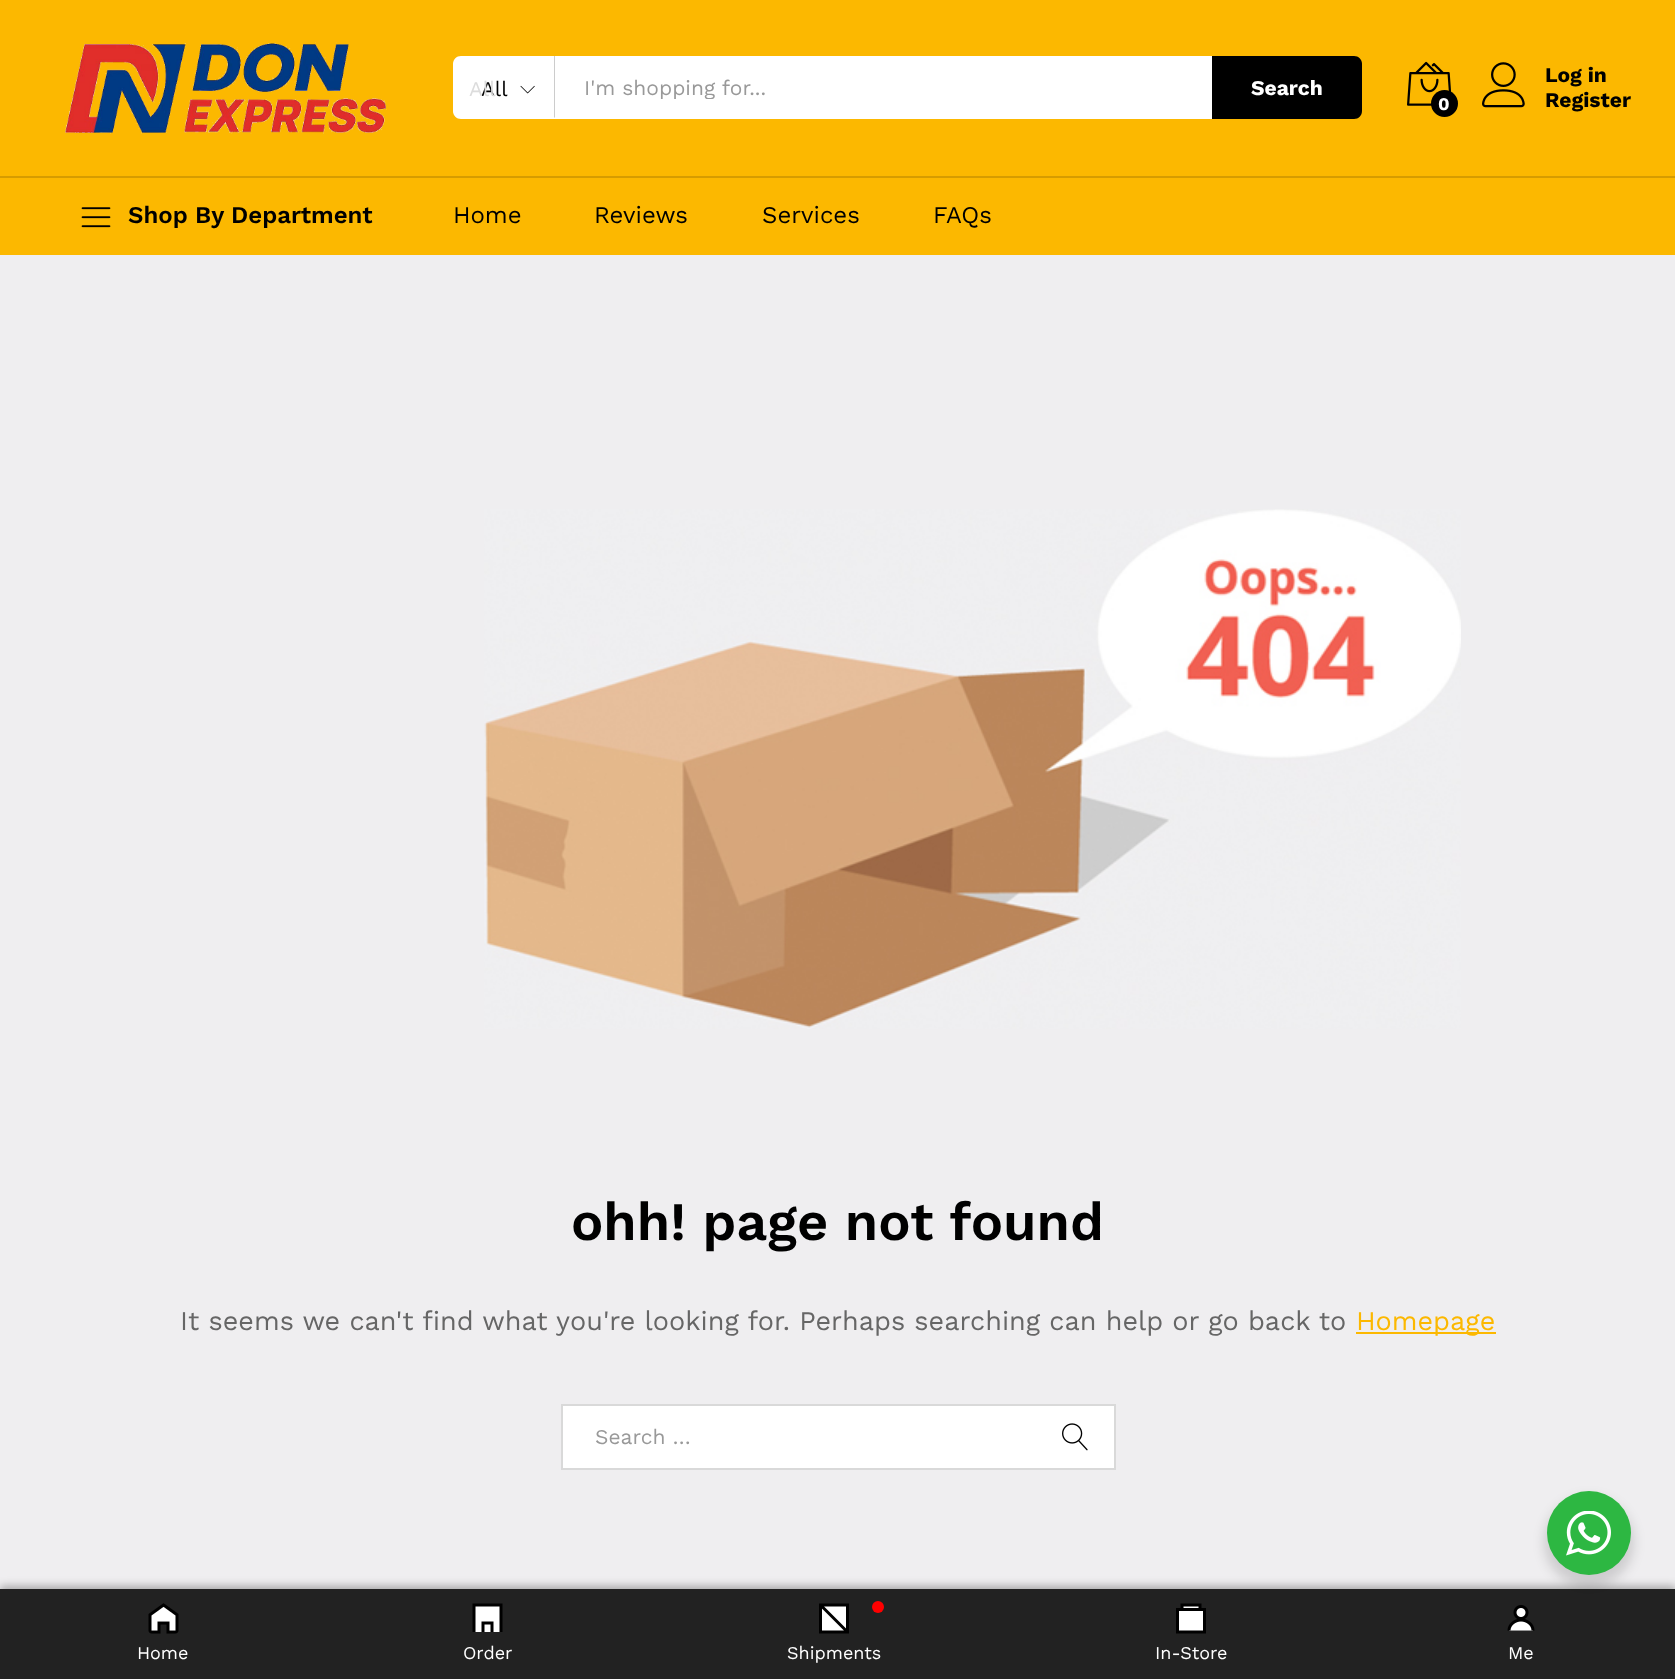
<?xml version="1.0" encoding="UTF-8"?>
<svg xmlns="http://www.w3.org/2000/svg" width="1675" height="1679">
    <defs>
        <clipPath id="clip1"><rect x="585" y="75" width="597" height="24"/></clipPath>
        <filter id="blur1" x="-50%" y="-200%" width="200%" height="500%"><feGaussianBlur stdDeviation="4.5"/></filter>
        <filter id="blur2" x="-50%" y="-200%" width="200%" height="500%"><feGaussianBlur stdDeviation="6"/></filter>
    </defs>
    <rect width="100%" height="100%" fill="#EFEEF0"/>
    <rect x="0" y="0" width="1675" height="255" fill="#FCB800"/>
    <image x="65" y="42" width="322" height="92" href="img_01.png"/>
    <path d="M 461 56 H 555 V 119 H 461 C 456.5 119 453 115.5 453 111 V 64 C 453 59.5 456.5 56 461 56 Z" fill="#FFFFFF"/>
    <text x="481" y="96" font-family="Work Sans" font-size="21" fill="#000000">All</text>
    <text x="469" y="96" font-family="Work Sans" font-size="21" fill="#DCDCDC">All</text>
    <path d="M 555 118 V 56 H 554 V 57 V 117 Z" fill="#CCCCCC"/>
    <image x="520" y="85" width="15" height="9" href="img_02.png"/>
    <rect x="555" y="56" width="657" height="63" fill="#FFFFFF"/>
    <g clip-path="url(#clip1)">
        <text x="584" y="95" font-family="Work Sans" font-size="21" fill="#999999">I'm shopping for...</text>
    </g>
    <path d="M 1212 56 H 1354 C 1358.5 56 1362 59.5 1362 64 V 111 C 1362 115.5 1358.5 119 1354 119 H 1212 Z" fill="#000000"/>
    <text x="1251" y="95" font-family="Work Sans" font-size="21" font-weight="700" fill="#FFFFFF">Search</text>
    <image x="1407" y="61" width="45" height="45" href="img_03.png"/>
    <circle cx="1444.5" cy="103.5" r="13.5" fill="#000000"/>
    <text x="1438" y="110" font-family="Work Sans" font-size="18" font-weight="700" fill="#FFFFFF">0</text>
    <image x="1482" y="62" width="43" height="46" href="img_04.png"/>
    <text font-family="Work Sans" font-size="21" font-weight="700" fill="#000000">
        <tspan x="1545" y="82">Log in</tspan>
        <tspan x="1545" y="107">Register</tspan>
    </text>
    <rect x="0" y="176" width="1675" height="2" fill="#D69C00"/>
    <image x="81" y="207" width="30" height="21" href="img_05.png"/>
    <text x="128" y="223" font-family="Work Sans" font-size="24" font-weight="600" fill="#000000">Shop By Department</text>
    <text x="453" y="223" font-family="Work Sans" font-size="24" fill="#000000">Home</text>
    <text x="594" y="223" font-family="Work Sans" font-size="24" fill="#000000">Reviews</text>
    <text x="762" y="223" font-family="Work Sans" font-size="24" fill="#000000">Services</text>
    <text x="933" y="223" font-family="Work Sans" font-size="24" fill="#000000">FAQs</text>
    <image x="484" y="509" width="977" height="520" href="img_06.png"/>
    <text x="571" y="1240" font-family="Work Sans" font-size="54" font-weight="600" fill="#000000">ohh! page not found</text>
    <text x="180" y="1330" font-family="Work Sans" font-size="27" fill="#666666">It seems we can't find what you're looking for. Perhaps searching can help or go back to</text>
    <rect x="1356" y="1332" width="140" height="2" fill="#FCB800"/>
    <text x="1356" y="1330" font-family="Work Sans" font-size="27" fill="#FCB800">Homepage</text>
    <rect x="562" y="1405" width="553" height="64" fill="#FFFFFF" stroke="#D9D9D9" stroke-width="2"/>
    <text x="595" y="1444" font-family="Work Sans" font-size="21" fill="#999999">Search …</text>
    <image x="1062" y="1423" width="26" height="28" href="img_07.png"/>
    <rect x="0" y="1586" width="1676" height="91" fill="#000000" fill-opacity="0.3" filter="url(#blur1)"/>
    <rect x="0" y="1589" width="1675" height="90" fill="#222222"/>
    <image x="1507" y="1605" width="28" height="26" href="img_12.png"/>
    <rect x="1544" y="1497" width="90" height="90" rx="45" fill="#000000" fill-opacity="0.14" filter="url(#blur2)"/>
    <circle cx="1589" cy="1533" r="42" fill="#2DB742"/>
    <image x="1566" y="1511" width="45" height="45" href="img_08.png"/>
    <image x="148" y="1603" width="31" height="31" href="img_09.png"/>
    <text x="137" y="1659" font-family="Work Sans" font-size="18" fill="#FFFFFF">Home</text>
    <image x="472" y="1603" width="31" height="29" href="img_10.png"/>
    <text x="463" y="1659" font-family="Work Sans" font-size="18" fill="#FFFFFF">Order</text>
    <path d="M 820.5 1605 H 847.5 V 1632 H 820.5 Z M 820.5 1605 L 847.5 1632" fill="#FFFFFF" stroke="#000000" stroke-width="3"/>
    <circle cx="878" cy="1607" r="6" fill="#FF0000"/>
    <text x="787" y="1659" font-family="Work Sans" font-size="18" fill="#FFFFFF">Shipments</text>
    <image x="1176" y="1603" width="30" height="31" href="img_11.png"/>
    <text x="1155" y="1659" font-family="Work Sans" font-size="18" fill="#FFFFFF">In-Store</text>
    <text x="1508" y="1659" font-family="Work Sans" font-size="18" fill="#FFFFFF">Me</text>
</svg>
